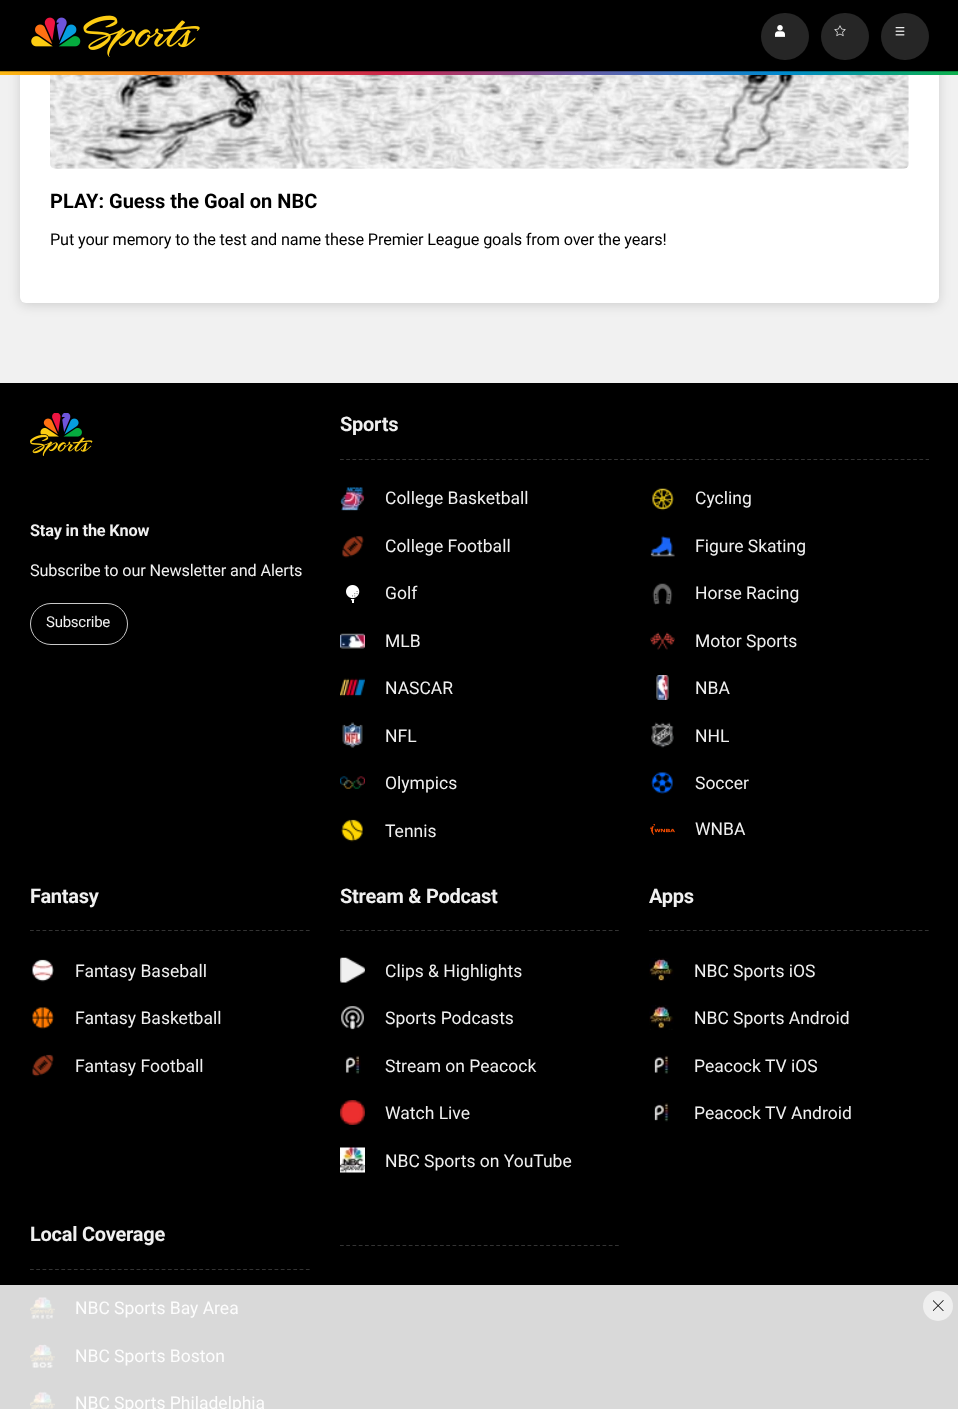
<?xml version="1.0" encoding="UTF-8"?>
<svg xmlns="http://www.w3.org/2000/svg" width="958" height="1409">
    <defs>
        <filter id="blur1" x="-50%" y="-200%" width="200%" height="500%"><feGaussianBlur stdDeviation="6"/></filter>
    </defs>
    <rect width="100%" height="100%" fill="#F1F1F1"/>
    <rect x="20" y="-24" width="919" height="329" rx="6" fill="#000000" fill-opacity="0.15" filter="url(#blur1)"/>
    <rect x="20" y="-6" width="919" height="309" rx="6" fill="#FFFFFF"/>
    <rect x="0" y="0" width="958" height="72" fill="#000000"/>
    <image x="31" y="15" width="169" height="42" href="img_01.png"/>
    <rect x="761" y="13" width="48" height="47" rx="23.5" fill="#262626"/>
    <image x="775" y="25" width="10" height="12" href="img_02.png"/>
    <rect x="821" y="13" width="48" height="47" rx="23.5" fill="#262626"/>
    <image x="834" y="25" width="12" height="12" href="img_03.png"/>
    <rect x="881" y="13" width="48" height="47" rx="23.5" fill="#262626"/>
    <image x="895" y="27" width="10" height="9" href="img_04.png"/>
    <image x="0" y="71" width="958" height="4" href="img_05.png"/>
    <image x="50" y="75" width="859" height="94" href="img_06.png"/>
    <text x="50" y="208" font-family="Roboto" font-size="20" font-weight="700" fill="#000000">PLAY: Guess the Goal on NBC</text>
    <text x="50" y="245" font-family="Roboto" font-size="16.25" letter-spacing="-0.15" fill="#000000">Put your memory to the test and name these Premier League goals from over the years!</text>
    <rect x="0" y="383" width="958" height="902" fill="#000000"/>
    <rect x="0" y="1285" width="958" height="124" fill="#D9D9D9"/>
    <image x="30" y="413" width="63" height="43" href="img_07.png"/>
    <text x="30" y="536" font-family="Roboto" font-size="16.25" font-weight="700" letter-spacing="-0.15" fill="#F0F0F0">Stay in the Know</text>
    <text x="30" y="576" font-family="Roboto" font-size="16.25" letter-spacing="-0.15" fill="#F0F0F0">Subscribe to our Newsletter and Alerts</text>
    <rect x="30.5" y="603.5" width="97" height="41" rx="20.5" fill="none" stroke="#C9C9C9"/>
    <text x="46" y="627" font-family="Roboto" font-size="15" letter-spacing="-0.25" fill="#F0F0F0">Subscribe</text>
    <path d="M 340 459.5 H 929" fill="none" stroke="#333333" stroke-width="1.2" stroke-dasharray="3.75 2.48"/>
    <text x="340" y="431" font-family="Roboto" font-size="20" font-weight="700" letter-spacing="-0.25" fill="#F0F0F0">Sports</text>
    <image x="340" y="487" width="25" height="24" href="img_08.png"/>
    <text x="385" y="504" font-family="Roboto" font-size="17.5" fill="#F0F0F0">College Basketball</text>
    <image x="652" y="488" width="22" height="23" href="img_09.png"/>
    <text x="695" y="504" font-family="Roboto" font-size="17.5" fill="#F0F0F0">Cycling</text>
    <image x="342" y="536" width="22" height="22" href="img_10.png"/>
    <text x="385" y="552" font-family="Roboto" font-size="17.5" fill="#F0F0F0">College Football</text>
    <image x="650" y="536" width="25" height="21" href="img_11.png"/>
    <text x="695" y="552" font-family="Roboto" font-size="17.5" fill="#F0F0F0">Figure Skating</text>
    <image x="346" y="585" width="14" height="18" href="img_12.png"/>
    <text x="385" y="599" font-family="Roboto" font-size="17.5" fill="#F0F0F0">Golf</text>
    <image x="652" y="583" width="21" height="22" href="img_13.png"/>
    <text x="695" y="599" font-family="Roboto" font-size="17.5" fill="#F0F0F0">Horse Racing</text>
    <image x="340" y="633" width="25" height="16" href="img_14.png"/>
    <text x="385" y="647" font-family="Roboto" font-size="17.5" fill="#F0F0F0">MLB</text>
    <image x="650" y="632" width="25" height="18" href="img_15.png"/>
    <text x="695" y="647" font-family="Roboto" font-size="17.5" fill="#F0F0F0">Motor Sports</text>
    <image x="340" y="678" width="25" height="19" href="img_16.png"/>
    <text x="385" y="694" font-family="Roboto" font-size="17.5" fill="#F0F0F0">NASCAR</text>
    <image x="656" y="675" width="13" height="25" href="img_17.png"/>
    <text x="695" y="694" font-family="Roboto" font-size="17.5" fill="#F0F0F0">NBA</text>
    <image x="342" y="722" width="21" height="26" href="img_18.png"/>
    <text x="385" y="742" font-family="Roboto" font-size="17.5" fill="#F0F0F0">NFL</text>
    <image x="651" y="722" width="23" height="26" href="img_19.png"/>
    <text x="695" y="742" font-family="Roboto" font-size="17.5" fill="#F0F0F0">NHL</text>
    <image x="340" y="776" width="25" height="13" href="img_20.png"/>
    <text x="385" y="789" font-family="Roboto" font-size="17.5" fill="#F0F0F0">Olympics</text>
    <image x="651" y="772" width="22" height="22" href="img_21.png"/>
    <text x="695" y="789" font-family="Roboto" font-size="17.5" fill="#F0F0F0">Soccer</text>
    <image x="341" y="819" width="22" height="23" href="img_22.png"/>
    <text x="385" y="837" font-family="Roboto" font-size="17.5" fill="#F0F0F0">Tennis</text>
    <image x="650" y="824" width="25" height="11" href="img_23.png"/>
    <text x="695" y="835" font-family="Roboto" font-size="17.5" fill="#F0F0F0">WNBA</text>
    <path d="M 30 930.5 H 310" fill="none" stroke="#333333" stroke-width="1.2" stroke-dasharray="3.75 2.52"/>
    <text x="30" y="903" font-family="Roboto" font-size="20" font-weight="700" letter-spacing="-0.25" fill="#F0F0F0">Fantasy</text>
    <image x="32" y="959" width="22" height="23" href="img_24.png"/>
    <text x="75" y="977" font-family="Roboto" font-size="17.5" fill="#F0F0F0">Fantasy Baseball</text>
    <image x="32" y="1007" width="22" height="22" href="img_25.png"/>
    <text x="75" y="1024" font-family="Roboto" font-size="17.5" fill="#F0F0F0">Fantasy Basketball</text>
    <image x="32" y="1054" width="22" height="23" href="img_26.png"/>
    <text x="75" y="1072" font-family="Roboto" font-size="17.5" fill="#F0F0F0">Fantasy Football</text>
    <path d="M 340 930.5 H 619" fill="none" stroke="#333333" stroke-width="1.2" stroke-dasharray="3.75 2.5"/>
    <text x="340" y="903" font-family="Roboto" font-size="20" font-weight="700" letter-spacing="-0.25" fill="#F0F0F0">Stream &amp; Podcast</text>
    <image x="340" y="957" width="25" height="26" href="img_27.png"/>
    <text x="385" y="977" font-family="Roboto" font-size="17.5" fill="#F0F0F0">Clips &amp; Highlights</text>
    <image x="341" y="1006" width="23" height="24" href="img_28.png"/>
    <text x="385" y="1024" font-family="Roboto" font-size="17.5" fill="#F0F0F0">Sports Podcasts</text>
    <image x="345" y="1055" width="16" height="19" href="img_29.png"/>
    <text x="385" y="1072" font-family="Roboto" font-size="17.5" fill="#F0F0F0">Stream on Peacock</text>
    <image x="340" y="1100" width="25" height="25" href="img_30.png"/>
    <text x="385" y="1119" font-family="Roboto" font-size="17.5" fill="#F0F0F0">Watch Live</text>
    <image x="340" y="1147" width="25" height="26" href="img_31.png"/>
    <text x="385" y="1167" font-family="Roboto" font-size="17.5" fill="#F0F0F0">NBC Sports on YouTube</text>
    <path d="M 649 930.5 H 929" fill="none" stroke="#333333" stroke-width="1.2" stroke-dasharray="3.75 2.52"/>
    <text x="649" y="903" font-family="Roboto" font-size="20" font-weight="700" letter-spacing="-0.25" fill="#F0F0F0">Apps</text>
    <image x="649" y="958" width="25" height="23" href="img_32.png"/>
    <text x="694" y="977" font-family="Roboto" font-size="17.5" fill="#F0F0F0">NBC Sports iOS</text>
    <image x="649" y="1005" width="25" height="25" href="img_33.png"/>
    <text x="694" y="1024" font-family="Roboto" font-size="17.5" fill="#F0F0F0">NBC Sports Android</text>
    <image x="654" y="1055" width="16" height="19" href="img_34.png"/>
    <text x="694" y="1072" font-family="Roboto" font-size="17.5" fill="#F0F0F0">Peacock TV iOS</text>
    <image x="654" y="1100" width="16" height="22" href="img_35.png"/>
    <text x="694" y="1119" font-family="Roboto" font-size="17.5" fill="#F0F0F0">Peacock TV Android</text>
    <path d="M 30 1269.5 H 310" fill="none" stroke="#333333" stroke-width="1.2" stroke-dasharray="3.75 2.52"/>
    <text x="30" y="1241" font-family="Roboto" font-size="20" font-weight="700" letter-spacing="-0.25" fill="#F0F0F0">Local Coverage</text>
    <image x="30" y="1297" width="25" height="22" href="img_36.png"/>
    <text x="75" y="1314" font-family="Roboto" font-size="17.5" fill="#FDFDFD">NBC Sports Bay Area</text>
    <image x="30" y="1344" width="25" height="25" href="img_37.png"/>
    <text x="75" y="1362" font-family="Roboto" font-size="17.5" fill="#FDFDFD">NBC Sports Boston</text>
    <image x="30" y="1391" width="25" height="18" href="img_38.png"/>
    <text x="75" y="1409" font-family="Roboto" font-size="17.5" fill="#FDFDFD">NBC Sports Philadelphia</text>
    <path d="M 340 1245.5 H 619" fill="none" stroke="#333333" stroke-width="1.2" stroke-dasharray="3.75 2.5"/>
    <circle cx="938" cy="1306" r="15" fill="#EFEFEF"/>
    <image x="933" y="1300" width="11" height="11" href="img_39.png"/>
</svg>
